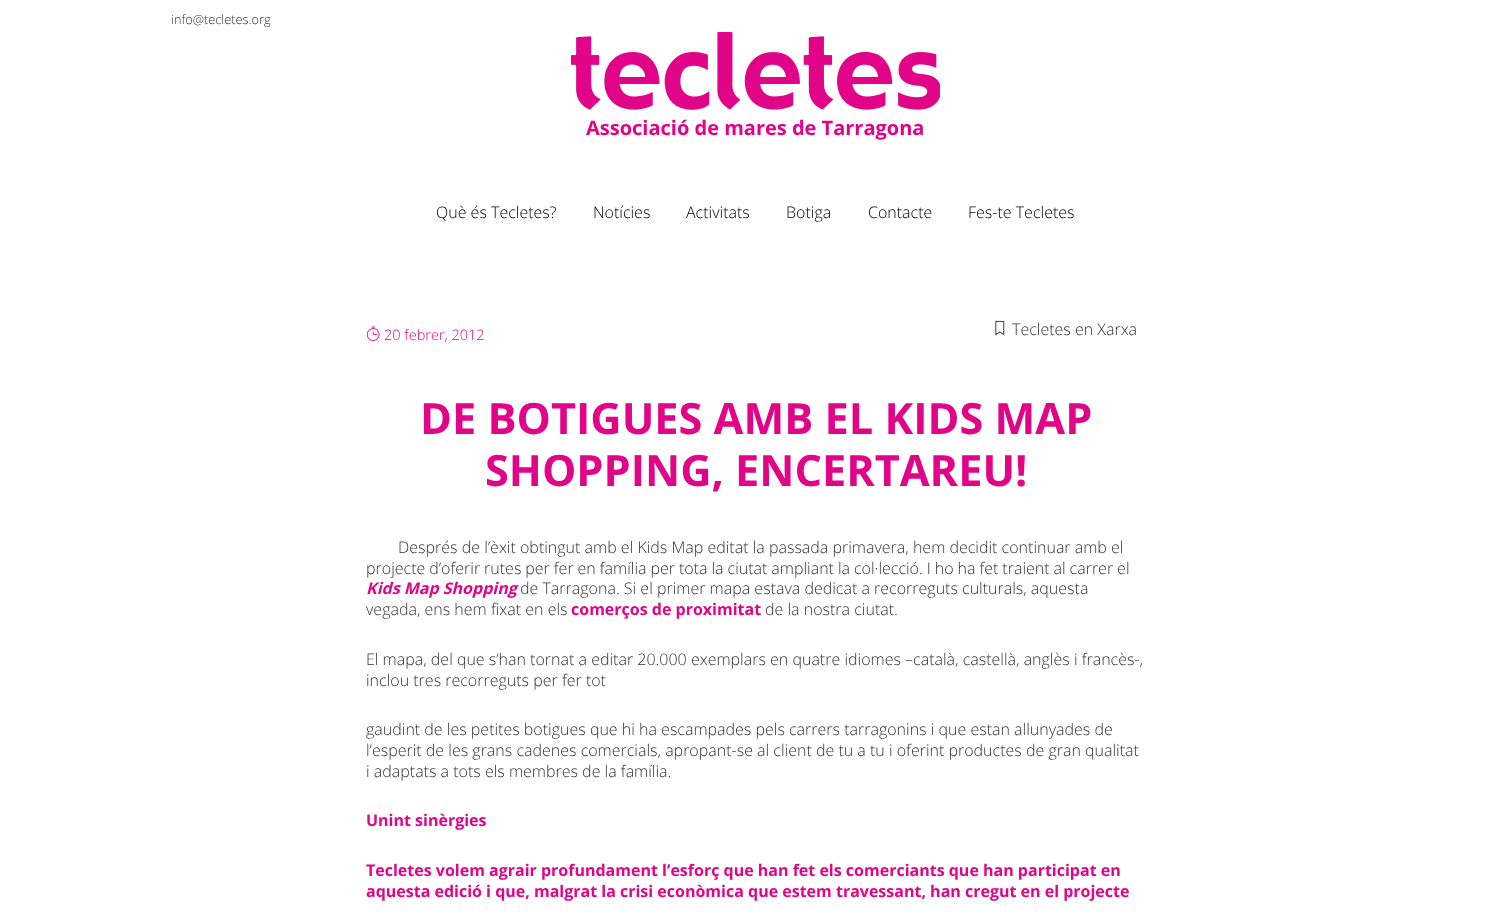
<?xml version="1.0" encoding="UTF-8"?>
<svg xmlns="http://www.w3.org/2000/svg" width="1511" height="914">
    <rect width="100%" height="100%" fill="#FFFFFF"/>
    <text x="171" y="24" font-family="Open Sans" font-size="12.75" font-weight="300" fill="#333333">info@tecletes.org</text>
    <image x="571" y="32" width="369" height="78" href="img_01.png"/>
    <text x="586" y="135" font-family="Open Sans" font-size="20" font-weight="700" fill="#E10488">Associació de mares de Tarragona</text>
    <text x="436" y="218" font-family="Open Sans" font-size="16" font-weight="300" fill="#000000">Què és Tecletes?</text>
    <text x="593" y="218" font-family="Open Sans" font-size="16" font-weight="300" fill="#000000">Notícies</text>
    <text x="686" y="218" font-family="Open Sans" font-size="16" font-weight="300" fill="#000000">Activitats</text>
    <text x="786" y="218" font-family="Open Sans" font-size="16" font-weight="300" fill="#000000">Botiga</text>
    <text x="868" y="218" font-family="Open Sans" font-size="16" font-weight="300" fill="#000000">Contacte</text>
    <text x="968" y="218" font-family="Open Sans" font-size="16" font-weight="300" fill="#000000">Fes-te Tecletes</text>
    <image x="366" y="326" width="14" height="15" href="img_02.png"/>
    <text x="384" y="340" font-family="Open Sans" font-size="14.5" font-weight="300" fill="#E10488">20 febrer, 2012</text>
    <image x="995" y="320" width="10" height="16" href="img_03.png"/>
    <text x="1012" y="335" font-family="Open Sans" font-size="16" font-weight="300" fill="#333333">Tecletes en Xarxa</text>
    <text x="420" y="434" font-family="Open Sans" font-size="43.25" font-weight="700" fill="#E10488">DE BOTIGUES AMB EL KIDS MAP</text>
    <text x="485" y="486" font-family="Open Sans" font-size="43.25" font-weight="700" fill="#E10488">SHOPPING, ENCERTAREU!</text>
    <text x="398" y="553" font-family="Open Sans" font-size="16" font-weight="300" fill="#333333">Després de l’èxit obtingut amb el Kids Map editat la passada primavera, hem decidit continuar amb el</text>
    <text x="366" y="574" word-spacing="-0.2" font-family="Open Sans" font-size="16" font-weight="300" fill="#333333">projecte d’oferir rutes per fer en família per tota la ciutat ampliant la col·lecció. I ho ha fet traient al carrer el</text>
    <text x="366" y="594" font-family="Open Sans" font-size="16" font-weight="700" font-style="italic" fill="#E10488">Kids Map Shopping</text>
    <text x="520" y="594" font-family="Open Sans" font-size="16" font-weight="300" fill="#333333">de Tarragona. Si el primer mapa estava dedicat a recorreguts culturals, aquesta</text>
    <text x="366" y="615" font-family="Open Sans" font-size="16" font-weight="300" fill="#333333">vegada, ens hem fixat en els</text>
    <text x="571" y="615" font-family="Open Sans" font-size="16" font-weight="700" fill="#E10488">comerços de proximitat</text>
    <text x="765" y="615" font-family="Open Sans" font-size="16" font-weight="300" fill="#333333">de la nostra ciutat.</text>
    <text font-family="Open Sans" font-size="16" font-weight="300" fill="#333333">
        <tspan x="366" y="665">El mapa, del que s’han tornat a editar 20.000 exemplars en quatre idiomes –català, castellà, anglès i francès-,</tspan>
        <tspan x="366" y="686">inclou tres recorreguts per fer tot</tspan>
    </text>
    <text font-family="Open Sans" font-size="16" font-weight="300" fill="#333333">
        <tspan x="366" y="735">gaudint de les petites botigues que hi ha escampades pels carrers tarragonins i que estan allunyades de</tspan>
        <tspan x="366" y="756">l’esperit de les grans cadenes comercials, apropant-se al client de tu a tu i oferint productes de gran qualitat</tspan>
        <tspan x="366" y="777">i adaptats a tots els membres de la família.</tspan>
    </text>
    <text x="366" y="826" font-family="Open Sans" font-size="16" font-weight="700" fill="#E10488">Unint sinèrgies</text>
    <text font-family="Open Sans" font-size="16" font-weight="700" fill="#E10488">
        <tspan x="366" y="876">Tecletes volem agrair profundament l’esforç que han fet els comerciants que han participat en</tspan>
        <tspan x="366" y="897">aquesta edició i que, malgrat la crisi econòmica que estem travessant, han cregut en el projecte</tspan>
    </text>
</svg>
